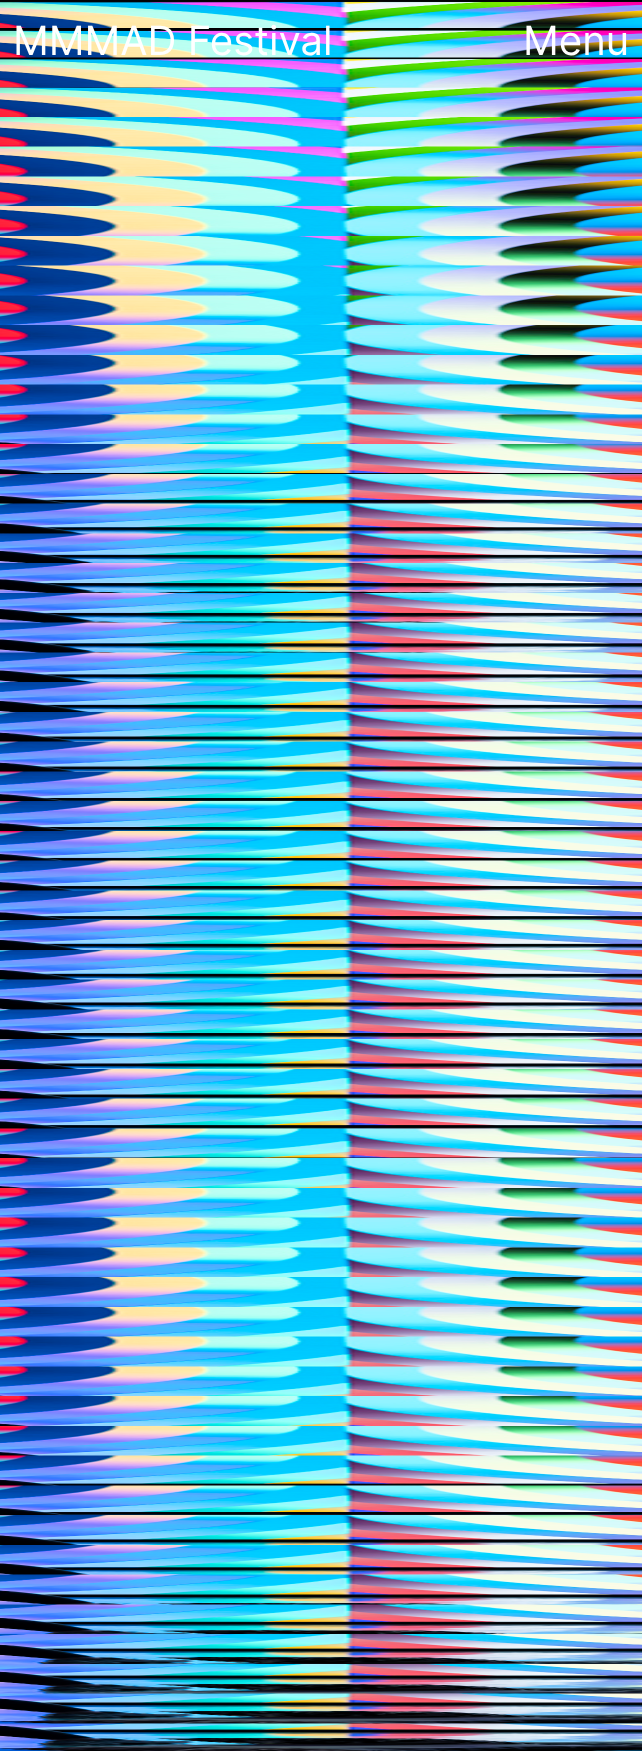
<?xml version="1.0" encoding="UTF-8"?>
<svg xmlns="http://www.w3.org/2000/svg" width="642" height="1751">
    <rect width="100%" height="100%" fill="#FFFFFF"/>
    <image x="0" y="0" width="642" height="1751" href="img_01.png"/>
    <text x="13" y="55" font-family="Inter" font-size="40.25" fill="#FFFFFF">MMMAD Festival</text>
    <text x="523" y="55" font-family="Inter" font-size="40.25" fill="#FFFFFF">Menu</text>
</svg>
